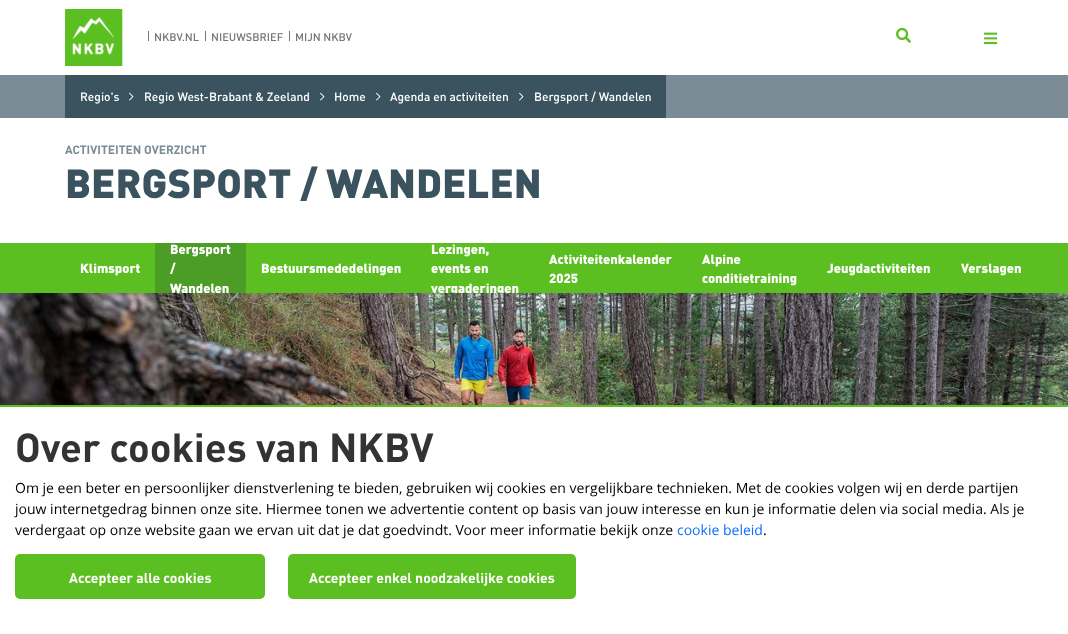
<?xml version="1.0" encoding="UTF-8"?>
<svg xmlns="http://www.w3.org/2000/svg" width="1068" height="634">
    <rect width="100%" height="100%" fill="#FFFFFF"/>
    <image x="65" y="9" width="58" height="57" href="img_01.png"/>
    <rect x="148" y="31" width="1" height="10" fill="#777776"/>
    <text x="154" y="41" font-family="DIN" font-size="11" font-weight="500" fill="#777776">NKBV.NL</text>
    <rect x="205" y="31" width="1" height="10" fill="#777776"/>
    <text x="211" y="41" font-family="DIN" font-size="11" font-weight="500" fill="#777776">NIEUWSBRIEF</text>
    <rect x="289" y="31" width="1" height="10" fill="#777776"/>
    <text x="295" y="41" font-family="DIN" font-size="11" font-weight="500" fill="#777776">MIJN NKBV</text>
    <image x="896" y="27" width="15" height="16" href="img_02.png"/>
    <image x="984" y="32" width="14" height="13" href="img_03.png"/>
    <rect x="0" y="75" width="1068" height="43" fill="#7B8C97"/>
    <rect x="65" y="75" width="601" height="43" fill="#3A535F"/>
    <text x="80" y="101" font-family="DIN" font-size="12" font-weight="500" fill="#FFFFFF">Regio's</text>
    <image x="129" y="92" width="5" height="9" href="img_04.png"/>
    <text x="144" y="101" font-family="DIN" font-size="12" font-weight="500" fill="#FFFFFF">Regio West-Brabant &amp; Zeeland</text>
    <image x="320" y="92" width="5" height="9" href="img_04.png"/>
    <text x="334" y="101" font-family="DIN" font-size="12" font-weight="500" fill="#FFFFFF">Home</text>
    <image x="376" y="92" width="5" height="9" href="img_04.png"/>
    <text x="390" y="101" font-family="DIN" font-size="12" font-weight="500" fill="#FFFFFF">Agenda en activiteiten</text>
    <image x="519" y="92" width="5" height="9" href="img_04.png"/>
    <text x="534" y="101" font-family="DIN" font-size="12" font-weight="500" fill="#FFFFFF">Bergsport / Wandelen</text>
    <text x="65" y="154" font-family="DIN" font-size="12" font-weight="700" fill="#7B8C97">ACTIVITEITEN OVERZICHT</text>
    <text x="65" y="198" font-family="DIN" font-size="40" font-weight="900" fill="#3A535F">BERGSPORT / WANDELEN</text>
    <rect x="0" y="243" width="1068" height="50" fill="#5BBF21"/>
    <text x="80" y="273" font-family="DIN" font-size="13" font-weight="900" fill="#FFFFFF">Klimsport</text>
    <rect x="155" y="243" width="91" height="50" fill="#4B9D26"/>
    <text font-family="DIN" font-size="13" font-weight="900" fill="#FFFFFF">
        <tspan x="170" y="254">Bergsport</tspan>
        <tspan x="170" y="273">/</tspan>
        <tspan x="170" y="293">Wandelen</tspan>
    </text>
    <text x="261" y="273" font-family="DIN" font-size="13" font-weight="900" fill="#FFFFFF">Bestuursmededelingen</text>
    <text font-family="DIN" font-size="13" font-weight="900" fill="#FFFFFF">
        <tspan x="431" y="254">Lezingen,</tspan>
        <tspan x="431" y="273">events en</tspan>
        <tspan x="431" y="293">vergaderingen</tspan>
    </text>
    <text font-family="DIN" font-size="13" font-weight="900" fill="#FFFFFF">
        <tspan x="549" y="264">Activiteitenkalender</tspan>
        <tspan x="549" y="283">2025</tspan>
    </text>
    <text font-family="DIN" font-size="13" font-weight="900" fill="#FFFFFF">
        <tspan x="702" y="264">Alpine</tspan>
        <tspan x="702" y="283">conditietraining</tspan>
    </text>
    <text x="827" y="273" font-family="DIN" font-size="13" font-weight="900" fill="#FFFFFF">Jeugdactiviteiten</text>
    <text x="961" y="273" font-family="DIN" font-size="13" font-weight="900" fill="#FFFFFF">Verslagen</text>
    <image x="0" y="293" width="1068" height="112" href="img_05.png"/>
    <rect x="0" y="405" width="1068" height="2" fill="#5BBF21"/>
    <text x="15" y="462" font-family="DIN" font-size="40" font-weight="700" fill="#333333">Over cookies van NKBV</text>
    <text font-family="Open Sans" font-size="14" fill="#000000">
        <tspan x="15" y="493">Om je een beter en persoonlijker dienstverlening te bieden, gebruiken wij cookies en vergelijkbare technieken. Met de cookies volgen wij en derde partijen</tspan>
        <tspan x="15" y="514">jouw internetgedrag binnen onze site. Hiermee tonen we advertentie content op basis van jouw interesse en kun je informatie delen via social media. Als je</tspan>
        <tspan x="15" y="535">verdergaat op onze website gaan we ervan uit dat je dat goedvindt. Voor meer informatie bekijk onze</tspan>
    </text>
    <text x="677" y="535" font-family="Open Sans" font-size="14" fill="#0D6EFD">cookie beleid</text>
    <text x="763" y="535" font-family="Open Sans" font-size="14" fill="#000000">.</text>
    <rect x="15" y="554" width="250" height="45" rx="5" fill="#5BBF21"/>
    <text x="69" y="583" font-family="DIN" font-size="14" font-weight="700" fill="#FFFFFF">Accepteer alle cookies</text>
    <rect x="288" y="554" width="288" height="45" rx="5" fill="#5BBF21"/>
    <text x="309" y="583" font-family="DIN" font-size="14" font-weight="700" fill="#FFFFFF">Accepteer enkel noodzakelijke cookies</text>
</svg>
